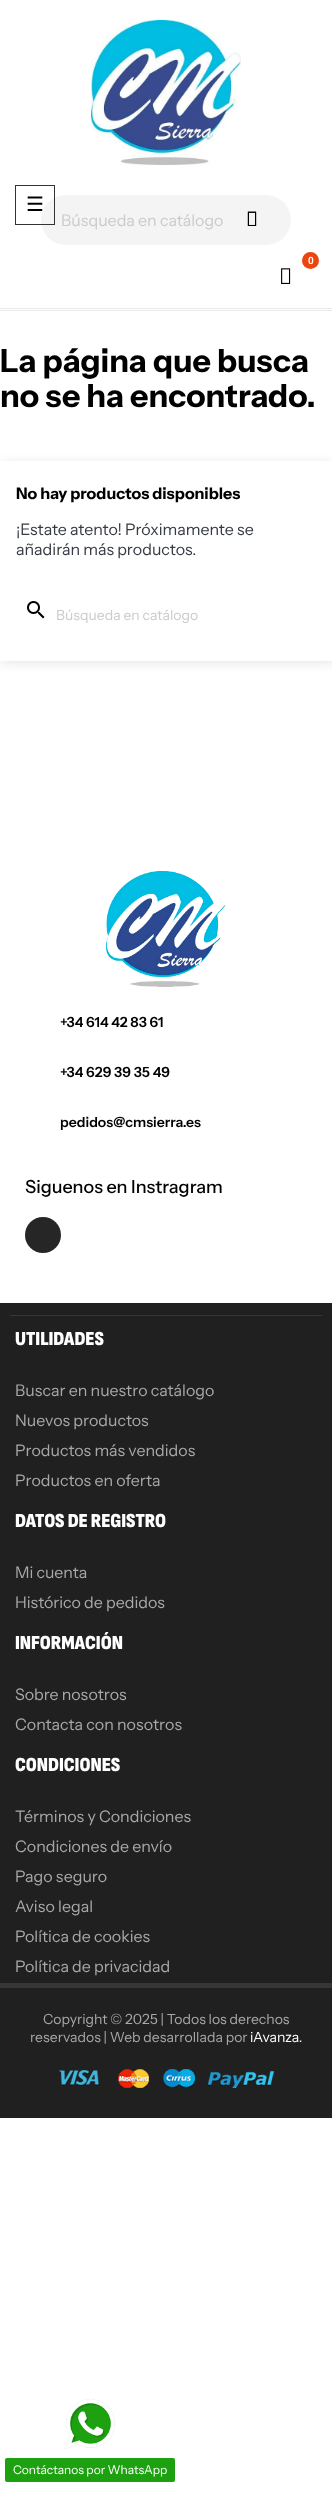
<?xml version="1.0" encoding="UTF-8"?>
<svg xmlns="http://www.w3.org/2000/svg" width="332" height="2498">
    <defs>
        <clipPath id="clip1"><path d="M 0 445 H 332 V 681 H 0 Z M 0 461 H 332 V 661 H 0 Z" clip-rule="evenodd"/></clipPath>
        <filter id="blur1" x="-50%" y="-200%" width="200%" height="500%"><feGaussianBlur stdDeviation="5.5"/></filter>
    </defs>
    <rect width="100%" height="100%" fill="#FFFFFF"/>
    <rect x="0" y="308" width="332" height="1" fill="#E9E9E9"/>
    <rect x="0" y="310" width="332" height="1" fill="#E9E9E9"/>
    <rect x="41" y="195" width="250" height="50" rx="25" fill="#F4F4F4"/>
    <rect x="15.5" y="185.5" width="39" height="39" fill="none" stroke="#333333"/>
    <text x="26" y="211" font-family="DejaVu Sans" font-size="20" fill="#000000">☰</text>
    <image x="91" y="20" width="150" height="145" href="img_01.png"/>
    <image x="247" y="211" width="10" height="15" href="img_02.png"/>
    <text x="61" y="226" font-family="Instrument Sans" font-size="16" fill="#CBCBCB">Búsqueda en catálogo</text>
    <image x="247" y="211" width="10" height="15" href="img_03.png"/>
    <circle cx="310.5" cy="260.5" r="8.5" fill="#EE440E"/>
    <text x="308" y="264" font-family="Roboto" font-size="10" font-weight="600" fill="#FFFFFF">0</text>
    <image x="281" y="268" width="10" height="16" href="img_04.png"/>
    <text font-family="Instrument Sans" font-size="32" font-weight="700" fill="#000000">
        <tspan x="0" y="372">La página que busca</tspan>
        <tspan x="0" y="407">no se ha encontrado.</tspan>
    </text>
    <g clip-path="url(#clip1)">
        <rect x="2" y="463" width="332" height="200" fill="#000000" fill-opacity="0.1" filter="url(#blur1)"/>
    </g>
    <text x="16" y="499" font-family="Instrument Sans" font-size="16" font-weight="700" fill="#000000">No hay productos disponibles</text>
    <text font-family="Instrument Sans" font-size="16" fill="#363A42">
        <tspan x="16" y="535">¡Estate atento! Próximamente se</tspan>
        <tspan x="16" y="555">añadirán más productos.</tspan>
    </text>
    <image x="27" y="601" width="18" height="18" href="img_05.png"/>
    <text x="56" y="620" font-family="Instrument Sans" font-size="14" fill="#CBCBCB">Búsqueda en catálogo</text>
    <image x="106" y="871" width="120" height="116" href="img_06.png"/>
    <text x="60" y="1027" font-family="Instrument Sans" font-size="14" font-weight="600" fill="#000000">+34 614 42 83 61</text>
    <text x="60" y="1077" font-family="Instrument Sans" font-size="14" font-weight="600" fill="#000000">+34 629 39 35 49</text>
    <text x="60" y="1127" font-family="Instrument Sans" font-size="14" font-weight="600" fill="#000000">pedidos@cmsierra.es</text>
    <text x="25" y="1193" font-family="Instrument Sans" font-size="18" font-weight="500" fill="#000000">Siguenos en Instragram</text>
    <circle cx="43" cy="1235" r="18" fill="#262626"/>
    <rect x="0" y="1303" width="332" height="815" fill="#202020"/>
    <rect x="10" y="1315" width="312" height="1" fill="#363636"/>
    <text x="15" y="1345" font-family="Sofia Sans Condensed" font-size="20" font-weight="900" fill="#FFFFFF">UTILIDADES</text>
    <text font-family="Instrument Sans" font-size="16" fill="#A8A8A8">
        <tspan x="15" y="1396">Buscar en nuestro catálogo</tspan>
        <tspan x="15" y="1426">Nuevos productos</tspan>
        <tspan x="15" y="1456">Productos más vendidos</tspan>
        <tspan x="15" y="1486">Productos en oferta</tspan>
    </text>
    <text x="15" y="1527" font-family="Sofia Sans Condensed" font-size="20" font-weight="900" fill="#FFFFFF">DATOS DE REGISTRO</text>
    <text font-family="Instrument Sans" font-size="16" fill="#A8A8A8">
        <tspan x="15" y="1578">Mi cuenta</tspan>
        <tspan x="15" y="1608">Histórico de pedidos</tspan>
    </text>
    <text x="15" y="1649" font-family="Sofia Sans Condensed" font-size="20" font-weight="900" fill="#FFFFFF">INFORMACIÓN</text>
    <text font-family="Instrument Sans" font-size="16" fill="#A8A8A8">
        <tspan x="15" y="1700">Sobre nosotros</tspan>
        <tspan x="15" y="1730">Contacta con nosotros</tspan>
    </text>
    <text x="15" y="1771" font-family="Sofia Sans Condensed" font-size="20" font-weight="900" fill="#FFFFFF">CONDICIONES</text>
    <text font-family="Instrument Sans" font-size="16" fill="#A8A8A8">
        <tspan x="15" y="1822">Términos y Condiciones</tspan>
        <tspan x="15" y="1852">Condiciones de envío</tspan>
        <tspan x="15" y="1882">Pago seguro</tspan>
        <tspan x="15" y="1912">Aviso legal</tspan>
        <tspan x="15" y="1942">Política de cookies</tspan>
        <tspan x="15" y="1972">Política de privacidad</tspan>
    </text>
    <rect x="0" y="1983" width="332" height="5" fill="#363636"/>
    <text x="43" y="2024" font-family="Instrument Sans" font-size="14" fill="#A8A8A8">Copyright © 2025 | Todos los derechos</text>
    <text x="30" y="2042" font-family="Instrument Sans" font-size="14" fill="#A8A8A8">reservados | Web desarrollada por</text>
    <text x="250" y="2042" font-family="Instrument Sans" font-size="14" fill="#FFFFFF">iAvanza.</text>
    <image x="59" y="2069" width="215" height="19" href="img_07.png"/>
    <image x="65" y="2399" width="50" height="50" href="img_08.png"/>
    <rect x="5" y="2458" width="170" height="24" rx="2" fill="#1DA110"/>
    <text x="13" y="2474" font-family="Instrument Sans" font-size="12" fill="#FFFFFF">Contáctanos por WhatsApp</text>
</svg>
